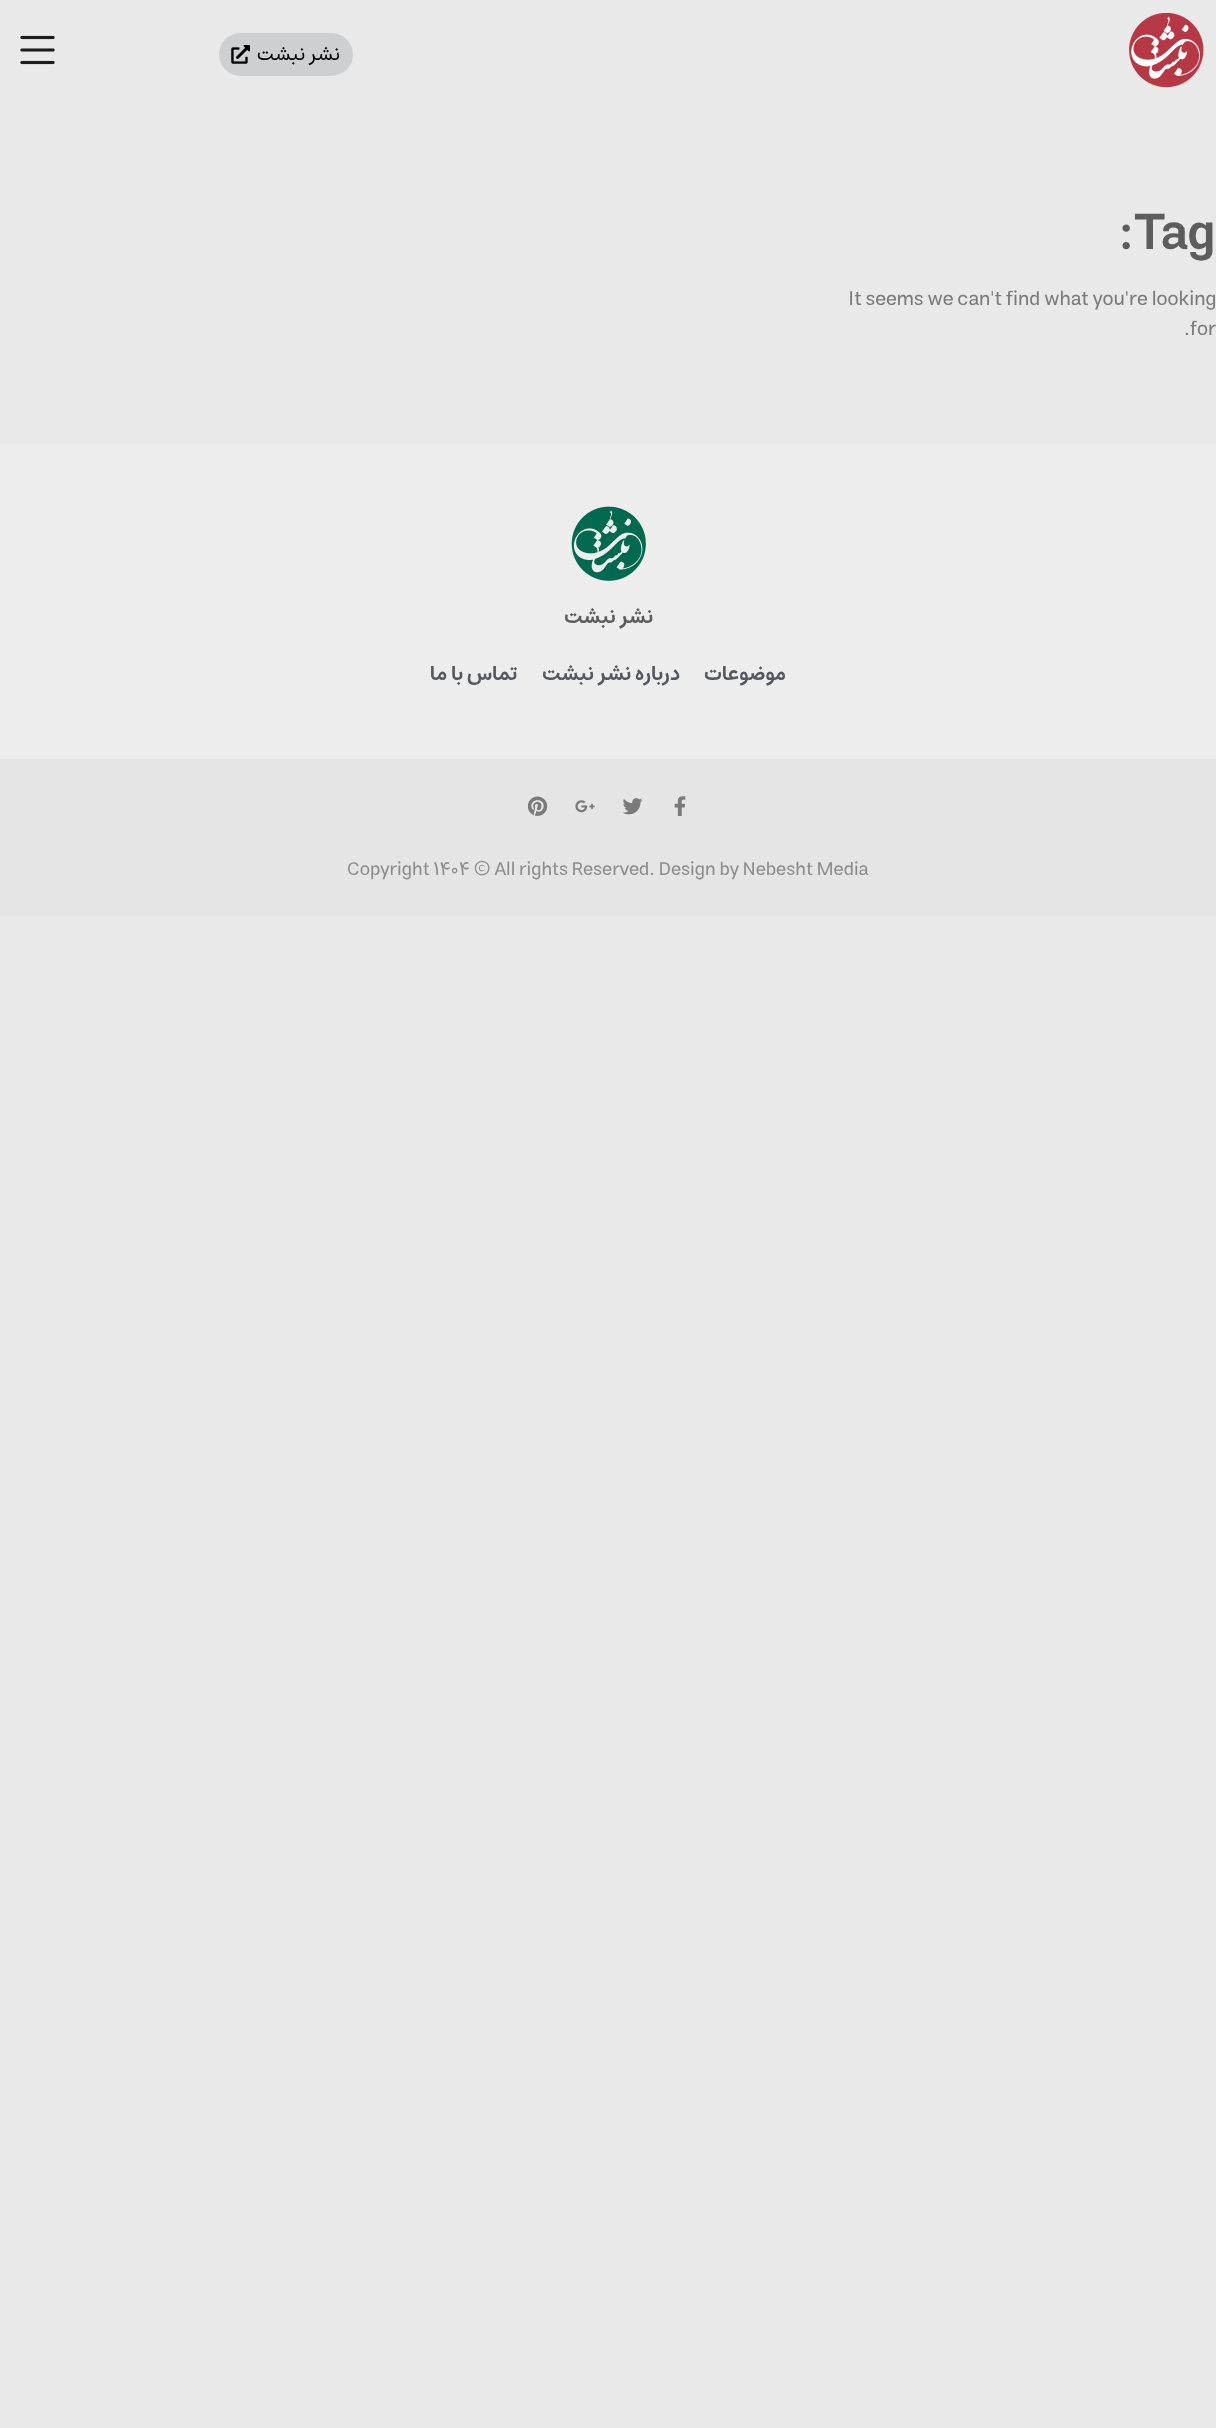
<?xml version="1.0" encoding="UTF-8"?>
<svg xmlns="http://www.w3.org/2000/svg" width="1216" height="2428">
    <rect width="100%" height="100%" fill="#E9E9E9"/>
    <image x="20" y="35" width="35" height="30" href="img_01.png"/>
    <rect x="219" y="33" width="134" height="43" rx="21.5" fill="#CECFD0"/>
    <image x="231" y="45" width="19" height="19" href="img_02.png"/>
    <text x="340" y="60" font-family="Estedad" font-size="18.75" direction="rtl" fill="#000000">نشر نبشت</text>
    <image x="1129" y="13" width="75" height="75" href="img_03.png"/>
    <text x="1119" y="249" font-family="Estedad" font-size="50" font-weight="600" fill="#5D5D5D">:Tag</text>
    <text x="848" y="305" font-family="Estedad" font-size="20" fill="#7A7A7A">It seems we can't find what you're looking</text>
    <text x="1184" y="335" font-family="Estedad" font-size="20" fill="#7A7A7A">.for</text>
    <rect x="0" y="444" width="1216" height="315" fill="#EDEDED"/>
    <image x="571" y="506" width="75" height="75" href="img_04.png"/>
    <text x="653" y="623" font-family="Estedad" font-size="20" font-weight="600" direction="rtl" fill="#5D5D5D">نشر نبشت</text>
    <text x="517" y="680" font-family="Estedad" font-size="20" font-weight="600" direction="rtl" fill="#54595F">تماس با ما</text>
    <text x="680" y="680" font-family="Estedad" font-size="20" font-weight="600" direction="rtl" fill="#54595F">درباره نشر نبشت</text>
    <text x="786" y="680" font-family="Estedad" font-size="20" font-weight="600" direction="rtl" fill="#54595F">موضوعات</text>
    <rect x="0" y="759" width="1216" height="157" fill="#E5E5E5"/>
    <image x="528" y="796" width="20" height="20" href="img_05.png"/>
    <image x="575" y="800" width="20" height="13" href="img_06.png"/>
    <image x="623" y="798" width="20" height="17" href="img_07.png"/>
    <image x="674" y="796" width="12" height="20" href="img_08.png"/>
    <text x="347" y="875" font-family="Estedad" font-size="18.75" fill="#8C8C8C">Copyright ۱۴۰۴ © All rights Reserved. Design by Nebesht Media</text>
</svg>
